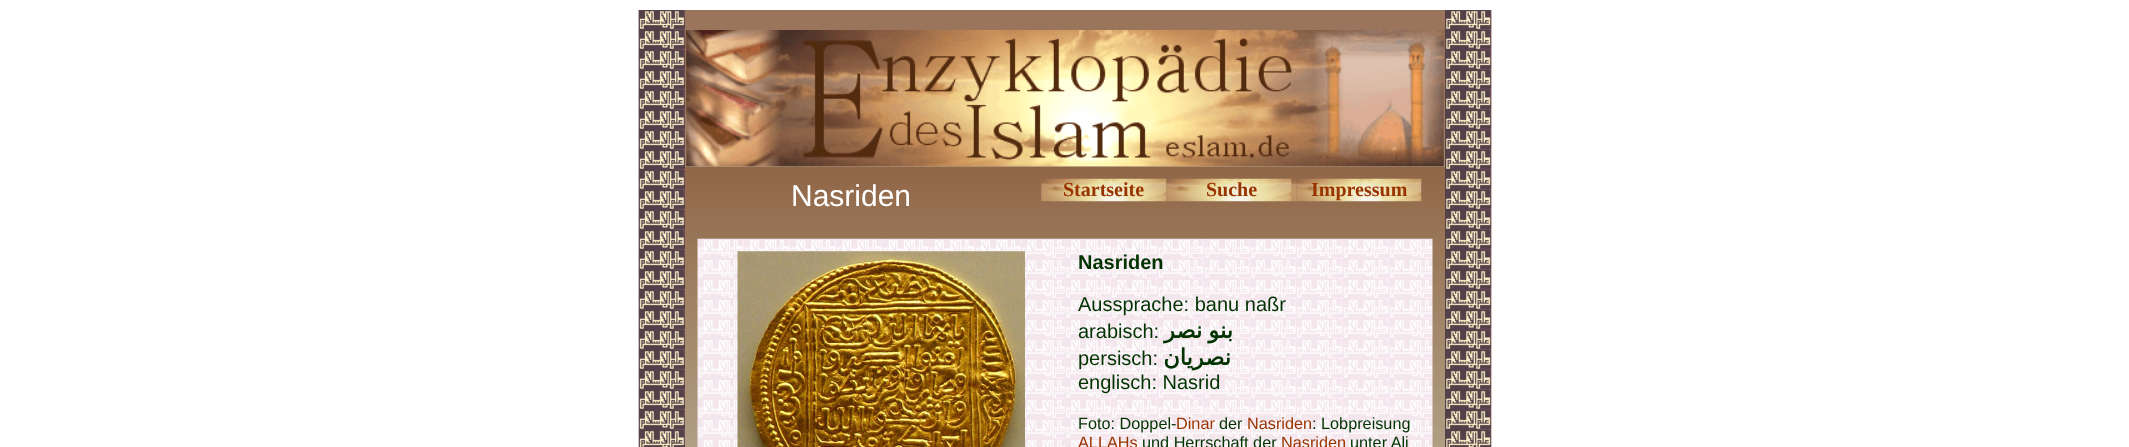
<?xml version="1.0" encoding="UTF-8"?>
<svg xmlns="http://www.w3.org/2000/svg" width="2129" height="447">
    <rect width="100%" height="100%" fill="#FFFFFF"/>
    <image x="638" y="10" width="854" height="437" href="img_01.png"/>
    <image x="638" y="10" width="47" height="20" href="img_02.png"/>
    <rect x="685" y="10" width="760" height="20" fill="#9B755B"/>
    <image x="1445" y="10" width="47" height="20" href="img_03.png"/>
    <image x="638" y="30" width="47" height="417" href="img_04.png"/>
    <image x="685" y="166" width="760" height="281" href="img_07.png"/>
    <image x="686" y="30" width="758" height="137" href="img_05.png"/>
    <image x="1445" y="30" width="47" height="417" href="img_06.png"/>
    <text x="791" y="206" font-family="Liberation Sans" font-size="30" fill="#FFFFFF">Nasriden</text>
    <image x="1041" y="178" width="126" height="24" href="img_08.png"/>
    <text x="1063" y="196" font-family="Liberation Serif" font-size="20" font-weight="700" fill="#993300">Startseite</text>
    <image x="1166" y="178" width="131" height="24" href="img_09.png"/>
    <text x="1206" y="196" font-family="Liberation Serif" font-size="20" font-weight="700" fill="#993300">Suche</text>
    <image x="1296" y="178" width="126" height="24" href="img_10.png"/>
    <text x="1311" y="196" font-family="Liberation Serif" font-size="20" font-weight="700" fill="#993300">Impressum</text>
    <image x="697" y="238" width="368" height="209" href="img_11.png"/>
    <image x="737" y="251" width="288" height="196" href="img_12.png"/>
    <image x="1065" y="238" width="368" height="209" href="img_13.png"/>
    <text x="1078" y="269" font-family="Liberation Sans" font-size="20" font-weight="700" fill="#003300">Nasriden</text>
    <text font-family="Liberation Sans" font-size="20" fill="#003300">
        <tspan x="1078" y="311">Aussprache: banu naßr</tspan>
        <tspan x="1078" y="338">arabisch:</tspan>
    </text>
    <text x="1233" y="338" word-spacing="-1" font-family="DejaVu Sans" font-size="22.5" font-weight="700" direction="rtl" fill="#003300">بنو نصر</text>
    <text x="1078" y="365" font-family="Liberation Sans" font-size="20" fill="#003300">persisch:</text>
    <text x="1231" y="365" font-family="DejaVu Sans" font-size="22.5" font-weight="700" direction="rtl" fill="#003300">نصریان</text>
    <text x="1078" y="389" font-family="Liberation Sans" font-size="20" fill="#003300">englisch: Nasrid</text>
    <text x="1078" y="429" font-family="Liberation Sans" font-size="16.25" fill="#003300">Foto: Doppel-</text>
    <text x="1176" y="429" font-family="Liberation Sans" font-size="16.25" fill="#993300">Dinar</text>
    <text x="1219" y="429" font-family="Liberation Sans" font-size="16.25" fill="#003300">der</text>
    <text x="1247" y="429" font-family="Liberation Sans" font-size="16.25" fill="#993300">Nasriden</text>
    <text x="1312" y="429" font-family="Liberation Sans" font-size="16.25" fill="#003300">: Lobpreisung</text>
    <text x="1078" y="448" font-family="Liberation Sans" font-size="16.25" fill="#993300">ALLAHs</text>
    <text x="1142" y="448" font-family="Liberation Sans" font-size="16.25" fill="#003300">und Herrschaft der</text>
    <text x="1281" y="448" font-family="Liberation Sans" font-size="16.25" fill="#993300">Nasriden</text>
    <text x="1350" y="448" font-family="Liberation Sans" font-size="16.25" fill="#003300">unter Ali</text>
</svg>
